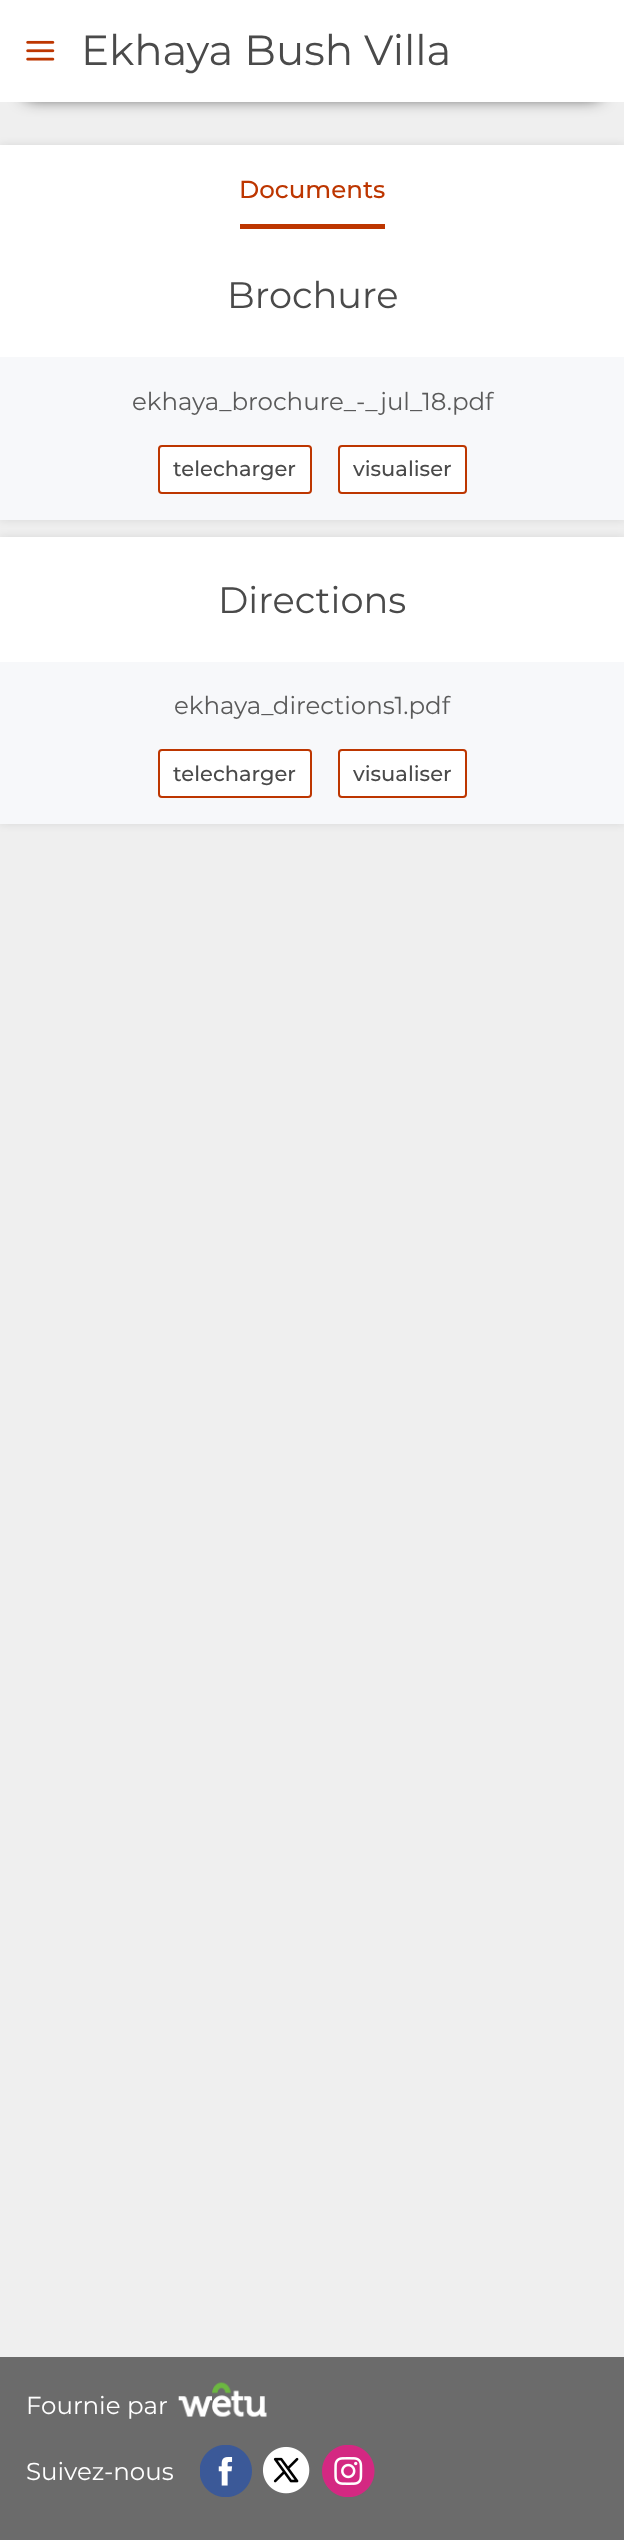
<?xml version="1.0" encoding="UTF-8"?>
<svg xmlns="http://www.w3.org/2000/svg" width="624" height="2540">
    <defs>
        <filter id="blur1" x="-50%" y="-200%" width="200%" height="500%"><feGaussianBlur stdDeviation="9"/></filter>
        <filter id="blur2" x="-50%" y="-200%" width="200%" height="500%"><feGaussianBlur stdDeviation="4.5"/></filter>
    </defs>
    <rect width="100%" height="100%" fill="#EFEFEF"/>
    <rect x="26" y="47" width="573" height="49" fill="#000000" filter="url(#blur1)"/>
    <rect x="0" y="0" width="624" height="102" fill="#FFFFFF"/>
    <image x="26" y="40" width="29" height="21" href="img_01.png"/>
    <text x="81" y="65" font-family="Montserrat" font-size="42" fill="#4A4A4A">Ekhaya Bush Villa</text>
    <rect x="0" y="145" width="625" height="375" fill="#000000" fill-opacity="0.1" filter="url(#blur2)"/>
    <rect x="0" y="145" width="624" height="212" fill="#FFFFFF"/>
    <text x="239" y="198" font-family="Montserrat" font-size="24.5" font-weight="500" fill="#BD3600">Documents</text>
    <rect x="240" y="224" width="145" height="5" fill="#BD3600"/>
    <text x="227" y="308" font-family="Montserrat" font-size="36.75" fill="#4A4A4A">Brochure</text>
    <rect x="0" y="357" width="624" height="163" fill="#F7F8FA"/>
    <text x="132" y="410" font-family="Montserrat" font-size="24.5" fill="#5A5A5A">ekhaya_brochure_-_jul_18.pdf</text>
    <rect x="159" y="446" width="152" height="47" rx="3" fill="#FFFFFF" stroke="#BD3600" stroke-width="2"/>
    <text x="173" y="476" font-family="Montserrat" font-size="21" font-weight="500" fill="#4A4A4A">telecharger</text>
    <rect x="339" y="446" width="127" height="47" rx="3" fill="#FFFFFF" stroke="#BD3600" stroke-width="2"/>
    <text x="353" y="476" font-family="Montserrat" font-size="21" font-weight="500" fill="#4A4A4A">visualiser</text>
    <rect x="0" y="537" width="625" height="287" fill="#000000" fill-opacity="0.1" filter="url(#blur2)"/>
    <rect x="0" y="537" width="624" height="125" fill="#FFFFFF"/>
    <text x="218" y="613" font-family="Montserrat" font-size="36.75" fill="#4A4A4A">Directions</text>
    <rect x="0" y="662" width="624" height="162" fill="#F7F8FA"/>
    <text x="174" y="714" font-family="Montserrat" font-size="24.5" fill="#5A5A5A">ekhaya_directions1.pdf</text>
    <rect x="159" y="750" width="152" height="47" rx="3" fill="#FFFFFF" stroke="#BD3600" stroke-width="2"/>
    <text x="173" y="781" font-family="Montserrat" font-size="21" font-weight="500" fill="#4A4A4A">telecharger</text>
    <rect x="339" y="750" width="127" height="47" rx="3" fill="#FFFFFF" stroke="#BD3600" stroke-width="2"/>
    <text x="353" y="781" font-family="Montserrat" font-size="21" font-weight="500" fill="#4A4A4A">visualiser</text>
    <rect x="0" y="2357" width="624" height="183" fill="#6B6B6B"/>
    <text x="26" y="2414" font-family="Montserrat" font-size="24.5" fill="#FFFFFF">Fournie par</text>
    <image x="178" y="2382" width="89" height="36" href="img_02.png"/>
    <text x="26" y="2480" font-family="Montserrat" font-size="24.5" fill="#FFFFFF">Suivez-nous</text>
    <image x="200" y="2445" width="52" height="52" href="img_03.png"/>
    <image x="262" y="2446" width="48" height="48" href="img_04.png"/>
    <image x="322" y="2445" width="53" height="52" href="img_05.png"/>
</svg>
